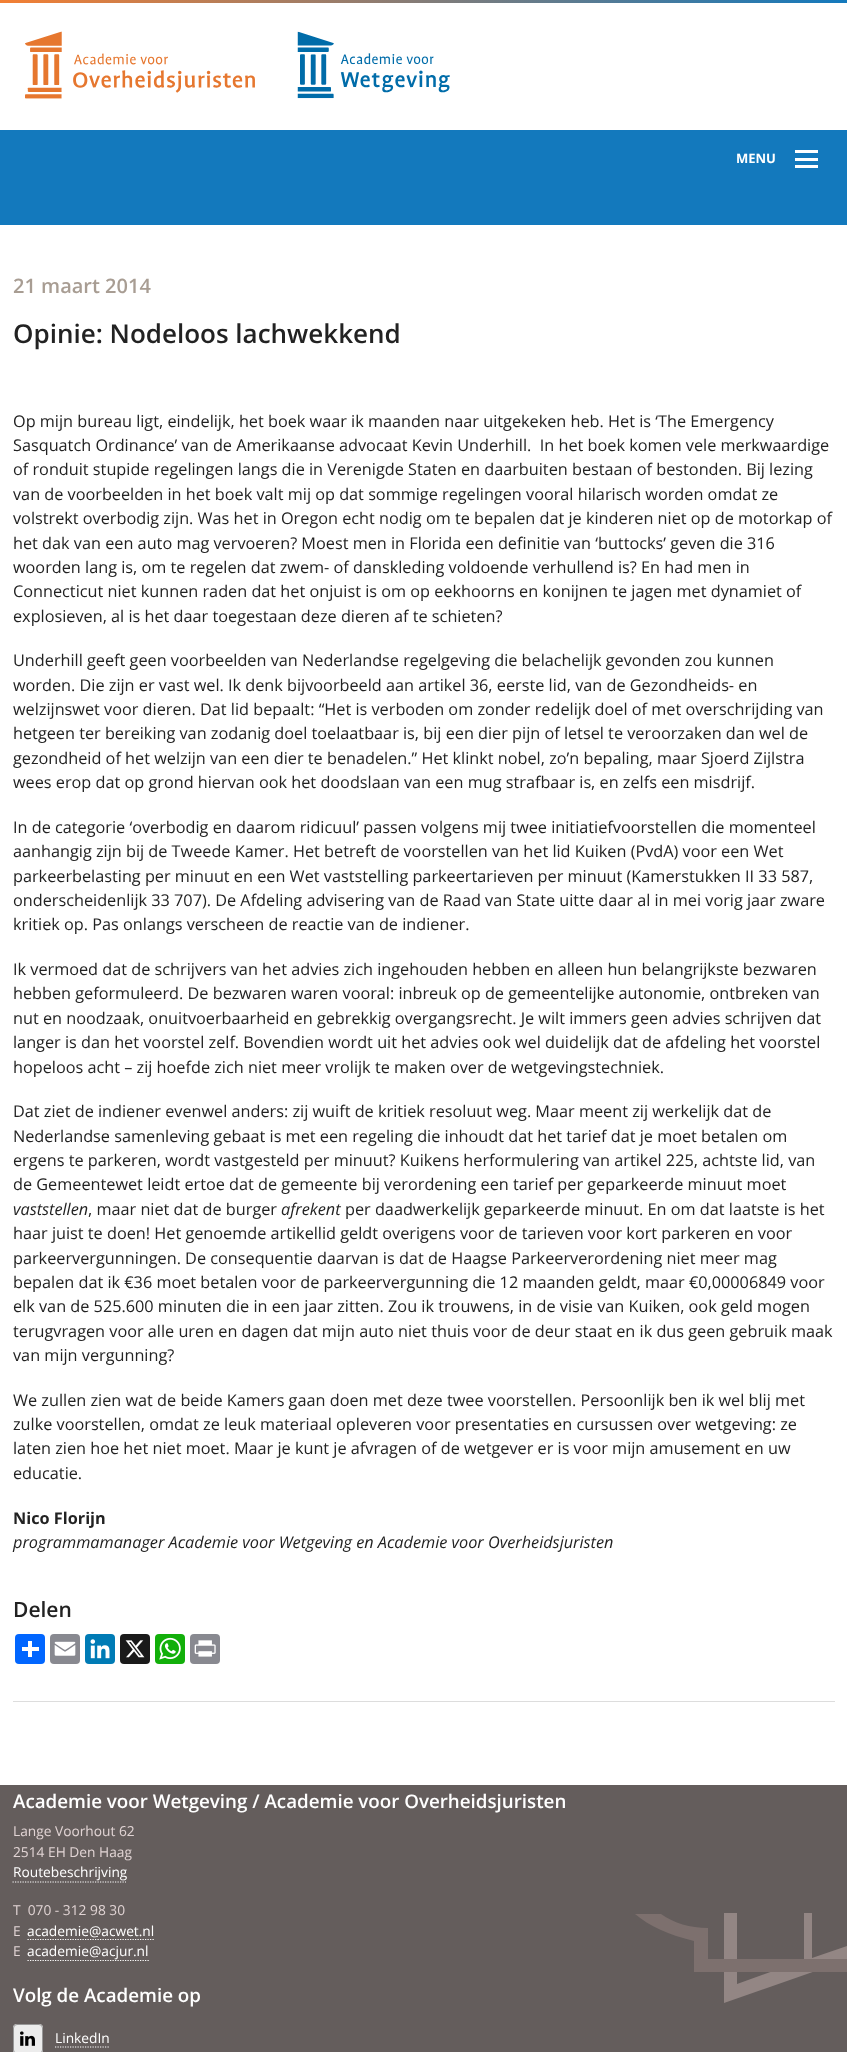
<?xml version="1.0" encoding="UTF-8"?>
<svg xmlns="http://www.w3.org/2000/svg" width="847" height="2052">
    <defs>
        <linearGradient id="g1" gradientUnits="userSpaceOnUse" x1="0" y1="1.3" x2="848" y2="1.2"><stop offset="0" stop-color="#F37F33"/><stop offset="1" stop-color="#1379BD"/></linearGradient>
        <clipPath id="clip1"><rect x="635" y="1913" width="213" height="91"/></clipPath>
    </defs>
    <rect width="100%" height="100%" fill="#FFFFFF"/>
    <rect x="0" y="0" width="847" height="3" fill="url(#g1)"/>
    <rect x="0" y="130" width="847" height="95" fill="#1379BD"/>
    <image x="25" y="31" width="425" height="68" href="img_01.png"/>
    <rect x="795" y="165" width="23" height="3" fill="#FFFFFF"/>
    <rect x="795" y="158" width="23" height="3" fill="#FFFFFF"/>
    <rect x="795" y="150" width="23" height="3" fill="#FFFFFF"/>
    <text x="736" y="163" font-family="Open Sans" font-size="13" font-weight="700" fill="#FFFFFF">MENU</text>
    <text x="13" y="293" font-family="Open Sans" font-size="20" font-weight="600" fill="#A89D93">21 maart 2014</text>
    <text x="13" y="343" font-family="Open Sans" font-size="26" font-weight="600" fill="#222222">Opinie: Nodeloos lachwekkend</text>
    <text font-family="Open Sans" font-size="16.25" fill="#222222" xml:space="preserve"><tspan x="13" y="427">Op mijn bureau ligt, eindelijk, het boek waar ik maanden naar uitgekeken heb. Het is ‘The Emergency</tspan><tspan x="13" y="451">Sasquatch Ordinance’ van de Amerikaanse advocaat Kevin Underhill.  In het boek komen vele merkwaardige</tspan><tspan x="13" y="475">of ronduit stupide regelingen langs die in Verenigde Staten en daarbuiten bestaan of bestonden. Bij lezing</tspan><tspan x="13" y="500">van de voorbeelden in het boek valt mij op dat sommige regelingen vooral hilarisch worden omdat ze</tspan><tspan x="13" y="524">volstrekt overbodig zijn. Was het in Oregon echt nodig om te bepalen dat je kinderen niet op de motorkap of</tspan><tspan x="13" y="549">het dak van een auto mag vervoeren? Moest men in Florida een definitie van ‘buttocks’ geven die 316</tspan><tspan x="13" y="573">woorden lang is, om te regelen dat zwem- of danskleding voldoende verhullend is? En had men in</tspan><tspan x="13" y="597">Connecticut niet kunnen raden dat het onjuist is om op eekhoorns en konijnen te jagen met dynamiet of</tspan><tspan x="13" y="622">explosieven, al is het daar toegestaan deze dieren af te schieten?</tspan></text>
    <text font-family="Open Sans" font-size="16.25" fill="#222222">
        <tspan x="13" y="666">Underhill geeft geen voorbeelden van Nederlandse regelgeving die belachelijk gevonden zou kunnen</tspan>
        <tspan x="13" y="691">worden. Die zijn er vast wel. Ik denk bijvoorbeeld aan artikel 36, eerste lid, van de Gezondheids- en</tspan>
        <tspan x="13" y="715">welzijnswet voor dieren. Dat lid bepaalt: “Het is verboden om zonder redelijk doel of met overschrijding van</tspan>
        <tspan x="13" y="739">hetgeen ter bereiking van zodanig doel toelaatbaar is, bij een dier pijn of letsel te veroorzaken dan wel de</tspan>
        <tspan x="13" y="764">gezondheid of het welzijn van een dier te benadelen.” Het klinkt nobel, zo’n bepaling, maar Sjoerd Zijlstra</tspan>
        <tspan x="13" y="788">wees erop dat op grond hiervan ook het doodslaan van een mug strafbaar is, en zelfs een misdrijf.</tspan>
    </text>
    <text font-family="Open Sans" font-size="16.25" fill="#222222">
        <tspan x="13" y="833">In de categorie ‘overbodig en daarom ridicuul’ passen volgens mij twee initiatiefvoorstellen die momenteel</tspan>
        <tspan x="13" y="857">aanhangig zijn bij de Tweede Kamer. Het betreft de voorstellen van het lid Kuiken (PvdA) voor een Wet</tspan>
        <tspan x="13" y="882">parkeerbelasting per minuut en een Wet vaststelling parkeertarieven per minuut (Kamerstukken II 33 587,</tspan>
        <tspan x="13" y="906">onderscheidenlijk 33 707). De Afdeling advisering van de Raad van State uitte daar al in mei vorig jaar zware</tspan>
        <tspan x="13" y="930">kritiek op. Pas onlangs verscheen de reactie van de indiener.</tspan>
    </text>
    <text font-family="Open Sans" font-size="16.25" fill="#222222">
        <tspan x="13" y="975">Ik vermoed dat de schrijvers van het advies zich ingehouden hebben en alleen hun belangrijkste bezwaren</tspan>
        <tspan x="13" y="999">hebben geformuleerd. De bezwaren waren vooral: inbreuk op de gemeentelijke autonomie, ontbreken van</tspan>
        <tspan x="13" y="1024">nut en noodzaak, onuitvoerbaarheid en gebrekkig overgangsrecht. Je wilt immers geen advies schrijven dat</tspan>
        <tspan x="13" y="1048">langer is dan het voorstel zelf. Bovendien wordt uit het advies ook wel duidelijk dat de afdeling het voorstel</tspan>
        <tspan x="13" y="1073">hopeloos acht – zij hoefde zich niet meer vrolijk te maken over de wetgevingstechniek.</tspan>
    </text>
    <text font-family="Open Sans" font-size="16.25" fill="#222222">
        <tspan x="13" y="1117">Dat ziet de indiener evenwel anders: zij wuift de kritiek resoluut weg. Maar meent zij werkelijk dat de</tspan>
        <tspan x="13" y="1142">Nederlandse samenleving gebaat is met een regeling die inhoudt dat het tarief dat je moet betalen om</tspan>
        <tspan x="13" y="1166">ergens te parkeren, wordt vastgesteld per minuut? Kuikens herformulering van artikel 225, achtste lid, van</tspan>
        <tspan x="13" y="1190">de Gemeentewet leidt ertoe dat de gemeente bij verordening een tarief per geparkeerde minuut moet</tspan>
    </text>
    <text x="13" y="1215" font-family="Open Sans" font-size="16.25" font-style="italic" fill="#222222">vaststellen</text>
    <text x="88" y="1215" font-family="Open Sans" font-size="16.25" fill="#222222">, maar niet dat de burger</text>
    <text x="281" y="1215" font-family="Open Sans" font-size="16.25" font-style="italic" fill="#222222">afrekent</text>
    <text x="345" y="1215" font-family="Open Sans" font-size="16.25" fill="#222222">per daadwerkelijk geparkeerde minuut. En om dat laatste is het</text>
    <text font-family="Open Sans" font-size="16.25" fill="#222222">
        <tspan x="13" y="1239">haar juist te doen! Het genoemde artikellid geldt overigens voor de tarieven voor kort parkeren en voor</tspan>
        <tspan x="13" y="1264">parkeervergunningen. De consequentie daarvan is dat de Haagse Parkeerverordening niet meer mag</tspan>
        <tspan x="13" y="1288">bepalen dat ik €36 moet betalen voor de parkeervergunning die 12 maanden geldt, maar €0,00006849 voor</tspan>
        <tspan x="13" y="1312">elk van de 525.600 minuten die in een jaar zitten. Zou ik trouwens, in de visie van Kuiken, ook geld mogen</tspan>
        <tspan x="13" y="1337">terugvragen voor alle uren en dagen dat mijn auto niet thuis voor de deur staat en ik dus geen gebruik maak</tspan>
        <tspan x="13" y="1361">van mijn vergunning?</tspan>
    </text>
    <text font-family="Open Sans" font-size="16.25" fill="#222222">
        <tspan x="13" y="1406">We zullen zien wat de beide Kamers gaan doen met deze twee voorstellen. Persoonlijk ben ik wel blij met</tspan>
        <tspan x="13" y="1430">zulke voorstellen, omdat ze leuk materiaal opleveren voor presentaties en cursussen over wetgeving: ze</tspan>
        <tspan x="13" y="1454">laten zien hoe het niet moet. Maar je kunt je afvragen of de wetgever er is voor mijn amusement en uw</tspan>
        <tspan x="13" y="1479">educatie.</tspan>
    </text>
    <text x="13" y="1524" font-family="Open Sans" font-size="16.25" font-weight="700" fill="#222222">Nico Florijn</text>
    <text x="13" y="1548" font-family="Open Sans" font-size="16.25" font-style="italic" fill="#222222">programmamanager Academie voor Wetgeving en Academie voor Overheidsjuristen</text>
    <text x="13" y="1617" font-family="Open Sans" font-size="21" font-weight="600" fill="#222222">Delen</text>
    <rect x="15" y="1634" width="30" height="30" rx="4" fill="#0166FF"/>
    <rect x="28" y="1641" width="4" height="16" fill="#FFFFFF"/>
    <rect x="22" y="1647" width="17" height="4" fill="#FFFFFF"/>
    <rect x="50" y="1634" width="30" height="30" rx="4" fill="#888990"/>
    <image x="54" y="1641" width="22" height="15" href="img_02.png"/>
    <rect x="85" y="1634" width="30" height="30" rx="4" fill="#007BB5"/>
    <image x="90" y="1639" width="20" height="20" href="img_03.png"/>
    <rect x="120" y="1634" width="30" height="30" rx="4" fill="#1A1A1A"/>
    <image x="125" y="1640" width="20" height="18" href="img_04.png"/>
    <rect x="155" y="1634" width="30" height="30" rx="4" fill="#12AF0A"/>
    <image x="159" y="1637" width="22" height="23" href="img_05.png"/>
    <rect x="190" y="1634" width="30" height="30" rx="4" fill="#888990"/>
    <image x="194" y="1640" width="22" height="17" href="img_06.png"/>
    <rect x="13" y="1701" width="822" height="1" fill="#DDDDDD"/>
    <rect x="0" y="1785" width="847" height="267" fill="#645D5C"/>
    <g clip-path="url(#clip1)">
        <path d="M 724 1913 H 737 V 1984 L 804 1960 V 1912 H 812 V 1958 L 847 1946 V 1960 L 724 2003 Z" fill="#938684" fill-rule="evenodd"/>
    </g>
    <path d="M 847 1959 V 1972 H 694 V 1941 C 669 1935 649 1926 635 1914 H 661 C 674 1923 690 1928 708 1928 V 1959 Z" fill="#7D706E" fill-rule="evenodd"/>
    <text x="13" y="1808" font-family="Open Sans" font-size="18.75" font-weight="600" fill="#FFFFFF">Academie voor Wetgeving / Academie voor Overheidsjuristen</text>
    <text font-family="Open Sans" font-size="13.75" fill="#E1D4D4">
        <tspan x="13" y="1836">Lange Voorhout 62</tspan>
        <tspan x="13" y="1857">2514 EH Den Haag</tspan>
    </text>
    <text x="13" y="1877" font-family="Open Sans" font-size="13.75" fill="#FFFFFF">Routebeschrijving</text>
    <path d="M 12.5 1882 H 126" fill="none" stroke="#FFFFFF" stroke-width="1.2" stroke-dasharray="1.25 1.25"/>
    <text font-family="Open Sans" font-size="13.75" fill="#E1D4D4" xml:space="preserve"><tspan x="13" y="1915">T  070 - 312 98 30</tspan><tspan x="13" y="1936">E</tspan></text>
    <text x="27" y="1936" font-family="Open Sans" font-size="13.75" fill="#FFFFFF">academie@acwet.nl</text>
    <path d="M 27.5 1939.5 H 155" fill="none" stroke="#FFFFFF" stroke-width="1.2" stroke-dasharray="1.25 1.25"/>
    <text x="13" y="1956" font-family="Open Sans" font-size="13.75" fill="#E1D4D4">E</text>
    <path d="M 27.5 1960.5 H 149" fill="none" stroke="#FFFFFF" stroke-width="1.2" stroke-dasharray="1.25 1.25"/>
    <text x="27" y="1956" font-family="Open Sans" font-size="13.75" fill="#FFFFFF">academie@acjur.nl</text>
    <text x="13" y="2002" font-family="Open Sans" font-size="18.75" font-weight="600" fill="#FFFFFF">Volg de Academie op</text>
    <rect x="13" y="2024" width="30" height="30" rx="4" fill="#ECECEC"/>
    <image x="20" y="2031" width="15" height="15" href="img_07.png"/>
    <rect x="13.5" y="2024.5" width="29" height="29" rx="3.5" fill="none" stroke="#979797"/>
    <text x="55" y="2043" font-family="Open Sans" font-size="13.75" fill="#FFFFFF">LinkedIn</text>
    <path d="M 55 2047 H 110" fill="none" stroke="#FFFFFF" stroke-width="1.2" stroke-dasharray="1.25 1.25"/>
</svg>
